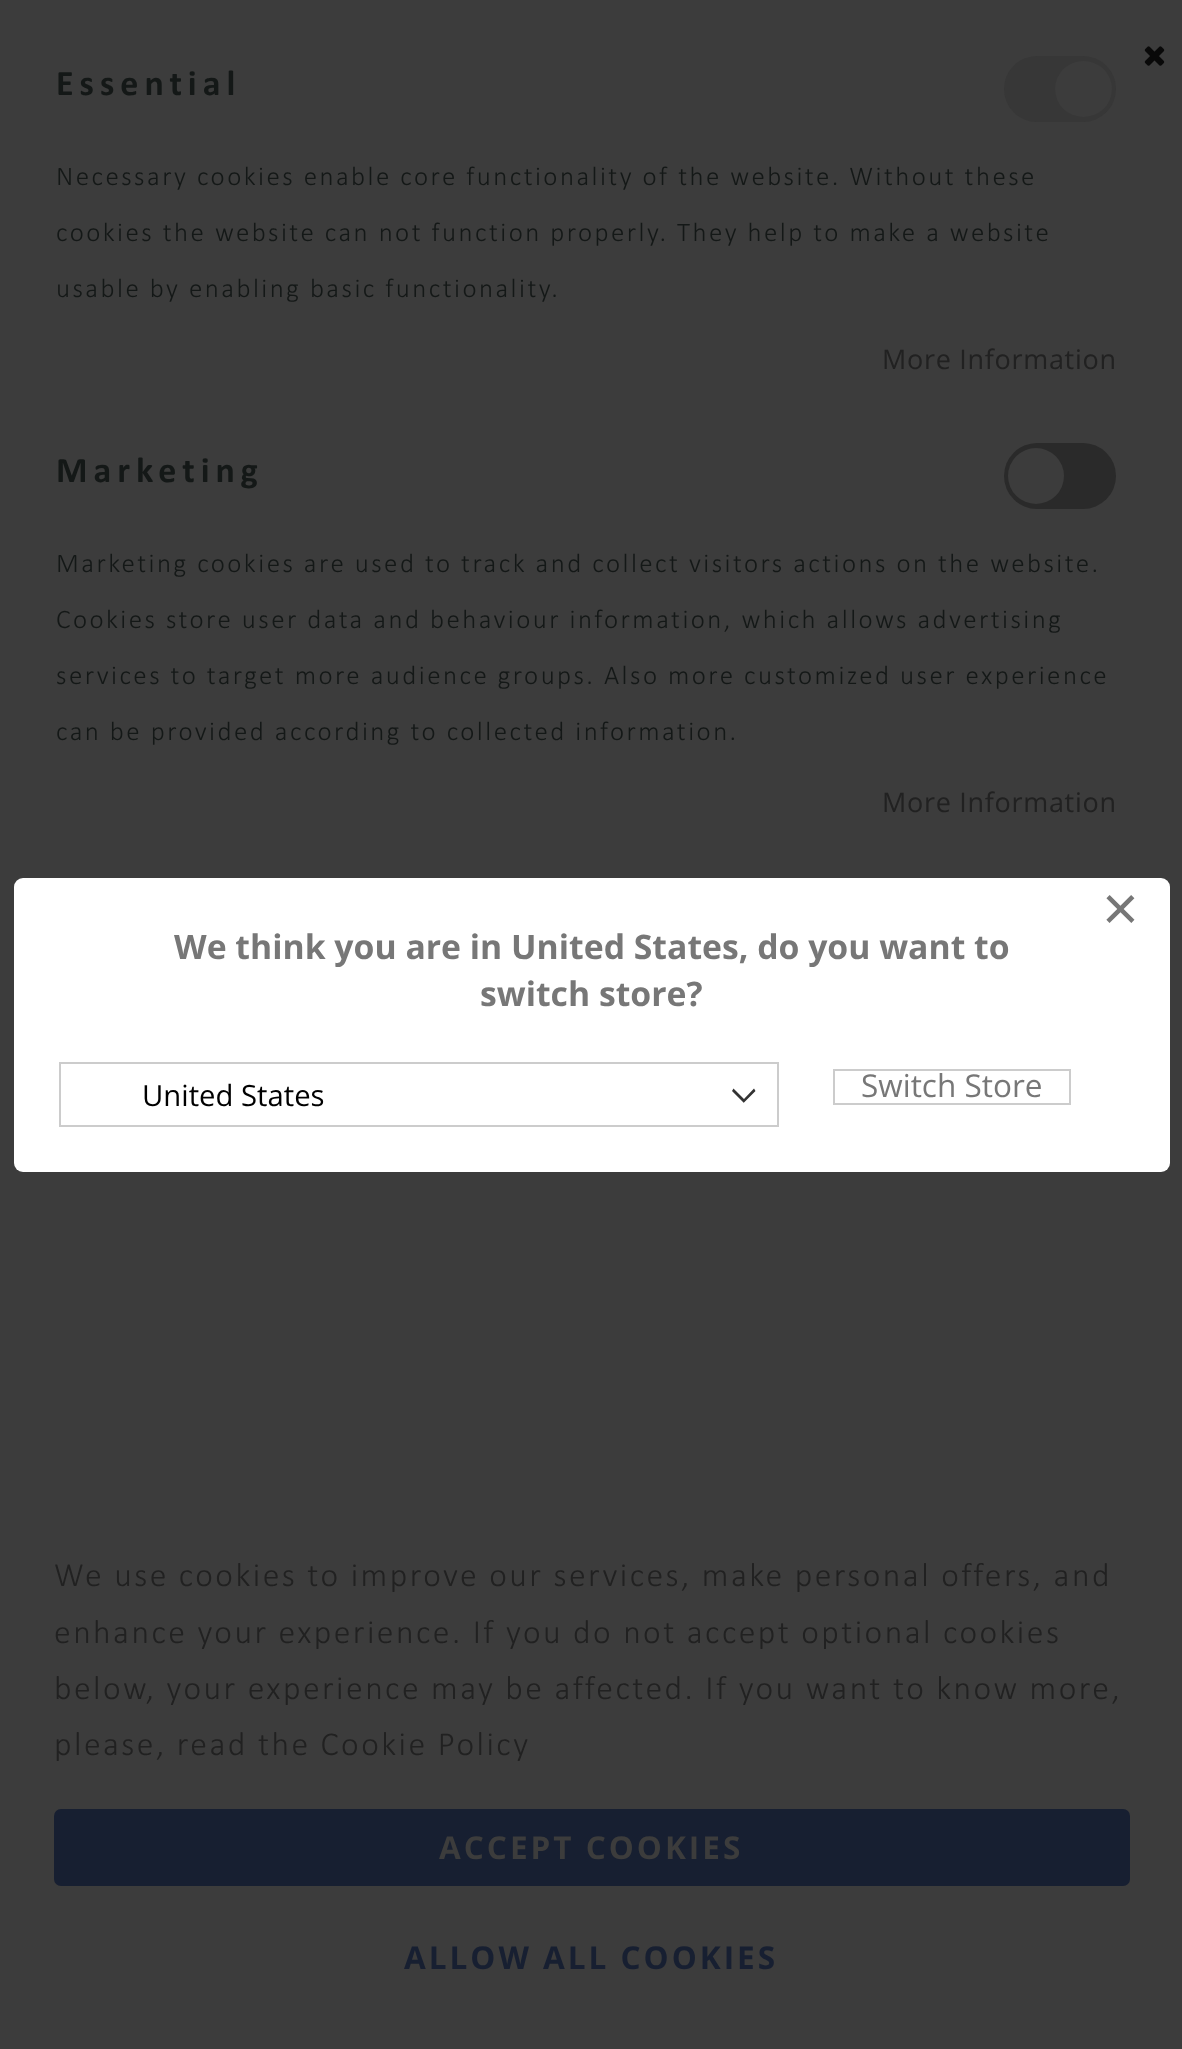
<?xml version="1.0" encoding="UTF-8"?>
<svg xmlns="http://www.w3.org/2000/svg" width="1182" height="2049">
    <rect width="100%" height="100%" fill="#3C3C3C"/>
    <image x="1144" y="46" width="21" height="20" href="img_01.png"/>
    <text x="56" y="95" font-family="Calibri" font-size="36" font-weight="700" letter-spacing="6" fill="#141817">Essential</text>
    <rect x="1004" y="56" width="112" height="66" rx="33" fill="#373737"/>
    <rect x="1055" y="61" width="57" height="56" rx="28" fill="#3C3C3C"/>
    <text x="56" y="185" font-family="Calibri" font-size="27" font-weight="300" letter-spacing="2.45" fill="#141817">Necessary cookies enable core functionality of the website. Without these</text>
    <text x="56" y="241" font-family="Calibri" font-size="27" font-weight="300" letter-spacing="2.45" fill="#141817">cookies the website can not function properly. They help to make a website</text>
    <text x="56" y="297" font-family="Calibri" font-size="27" font-weight="300" letter-spacing="2.45" fill="#141817">usable by enabling basic functionality.</text>
    <text x="882" y="369" font-family="Open Sans" font-size="27" letter-spacing="0.7" fill="#212121">More Information</text>
    <text x="56" y="482" font-family="Calibri" font-size="36" font-weight="700" letter-spacing="6" fill="#141817">Marketing</text>
    <rect x="1004" y="443" width="112" height="66" rx="33" fill="#2A2A2A"/>
    <circle cx="1036" cy="476" r="28" fill="#3C3C3C"/>
    <text x="56" y="572" font-family="Calibri" font-size="27" font-weight="300" letter-spacing="2.45" fill="#141817">Marketing cookies are used to track and collect visitors actions on the website.</text>
    <text x="56" y="628" font-family="Calibri" font-size="27" font-weight="300" letter-spacing="2.45" fill="#141817">Cookies store user data and behaviour information, which allows advertising</text>
    <text x="56" y="684" font-family="Calibri" font-size="27" font-weight="300" letter-spacing="2.45" fill="#141817">services to target more audience groups. Also more customized user experience</text>
    <text x="56" y="740" font-family="Calibri" font-size="27" font-weight="300" letter-spacing="2.45" fill="#141817">can be provided according to collected information.</text>
    <text x="882" y="812" font-family="Open Sans" font-size="27" letter-spacing="0.7" fill="#212121">More Information</text>
    <text font-family="Calibri" font-size="33.75" font-weight="300" letter-spacing="2.45" fill="#212121">
        <tspan x="54" y="1586">We use cookies to improve our services, make personal offers, and</tspan>
        <tspan x="54" y="1643">enhance your experience. If you do not accept optional cookies</tspan>
        <tspan x="54" y="1699">below, your experience may be affected. If you want to know more,</tspan>
        <tspan x="54" y="1755">please, read the Cookie Policy</tspan>
    </text>
    <rect x="54" y="1809" width="1076" height="77" rx="7" fill="#171F31"/>
    <text x="439" y="1859" font-family="Open Sans" font-size="31.5" font-weight="700" letter-spacing="3" fill="#3C3C3C">ACCEPT COOKIES</text>
    <text x="404" y="1969" font-family="Open Sans" font-size="31.5" font-weight="700" letter-spacing="3" fill="#171F31">ALLOW ALL COOKIES</text>
    <rect x="14" y="878" width="1156" height="294" rx="9" fill="#FFFFFF"/>
    <text x="1102" y="930" font-family="Liberation Sans" font-size="63" fill="#777777">×</text>
    <text x="174" y="959" font-family="Open Sans" font-size="33.75" font-weight="700" fill="#777777">We think you are in United States, do you want to</text>
    <text x="480" y="1006" font-family="Open Sans" font-size="33.75" font-weight="700" fill="#777777">switch store?</text>
    <path d="M 744 1102.5 L 755.5 1091 L 754 1088.5 L 744 1099 L 733.5 1088.5 L 732 1091 L 744 1103 Z" fill="#333333" fill-rule="evenodd"/>
    <rect x="60" y="1063" width="718" height="63" fill="none" stroke="#CCCCCC" stroke-width="2"/>
    <text x="142" y="1106" font-family="Open Sans" font-size="29.25" fill="#000000">United States</text>
    <rect x="834" y="1070" width="236" height="34" fill="none" stroke="#CCCCCC" stroke-width="2"/>
    <text x="861" y="1097" font-family="Open Sans" font-size="31.5" fill="#777777">Switch Store</text>
</svg>
